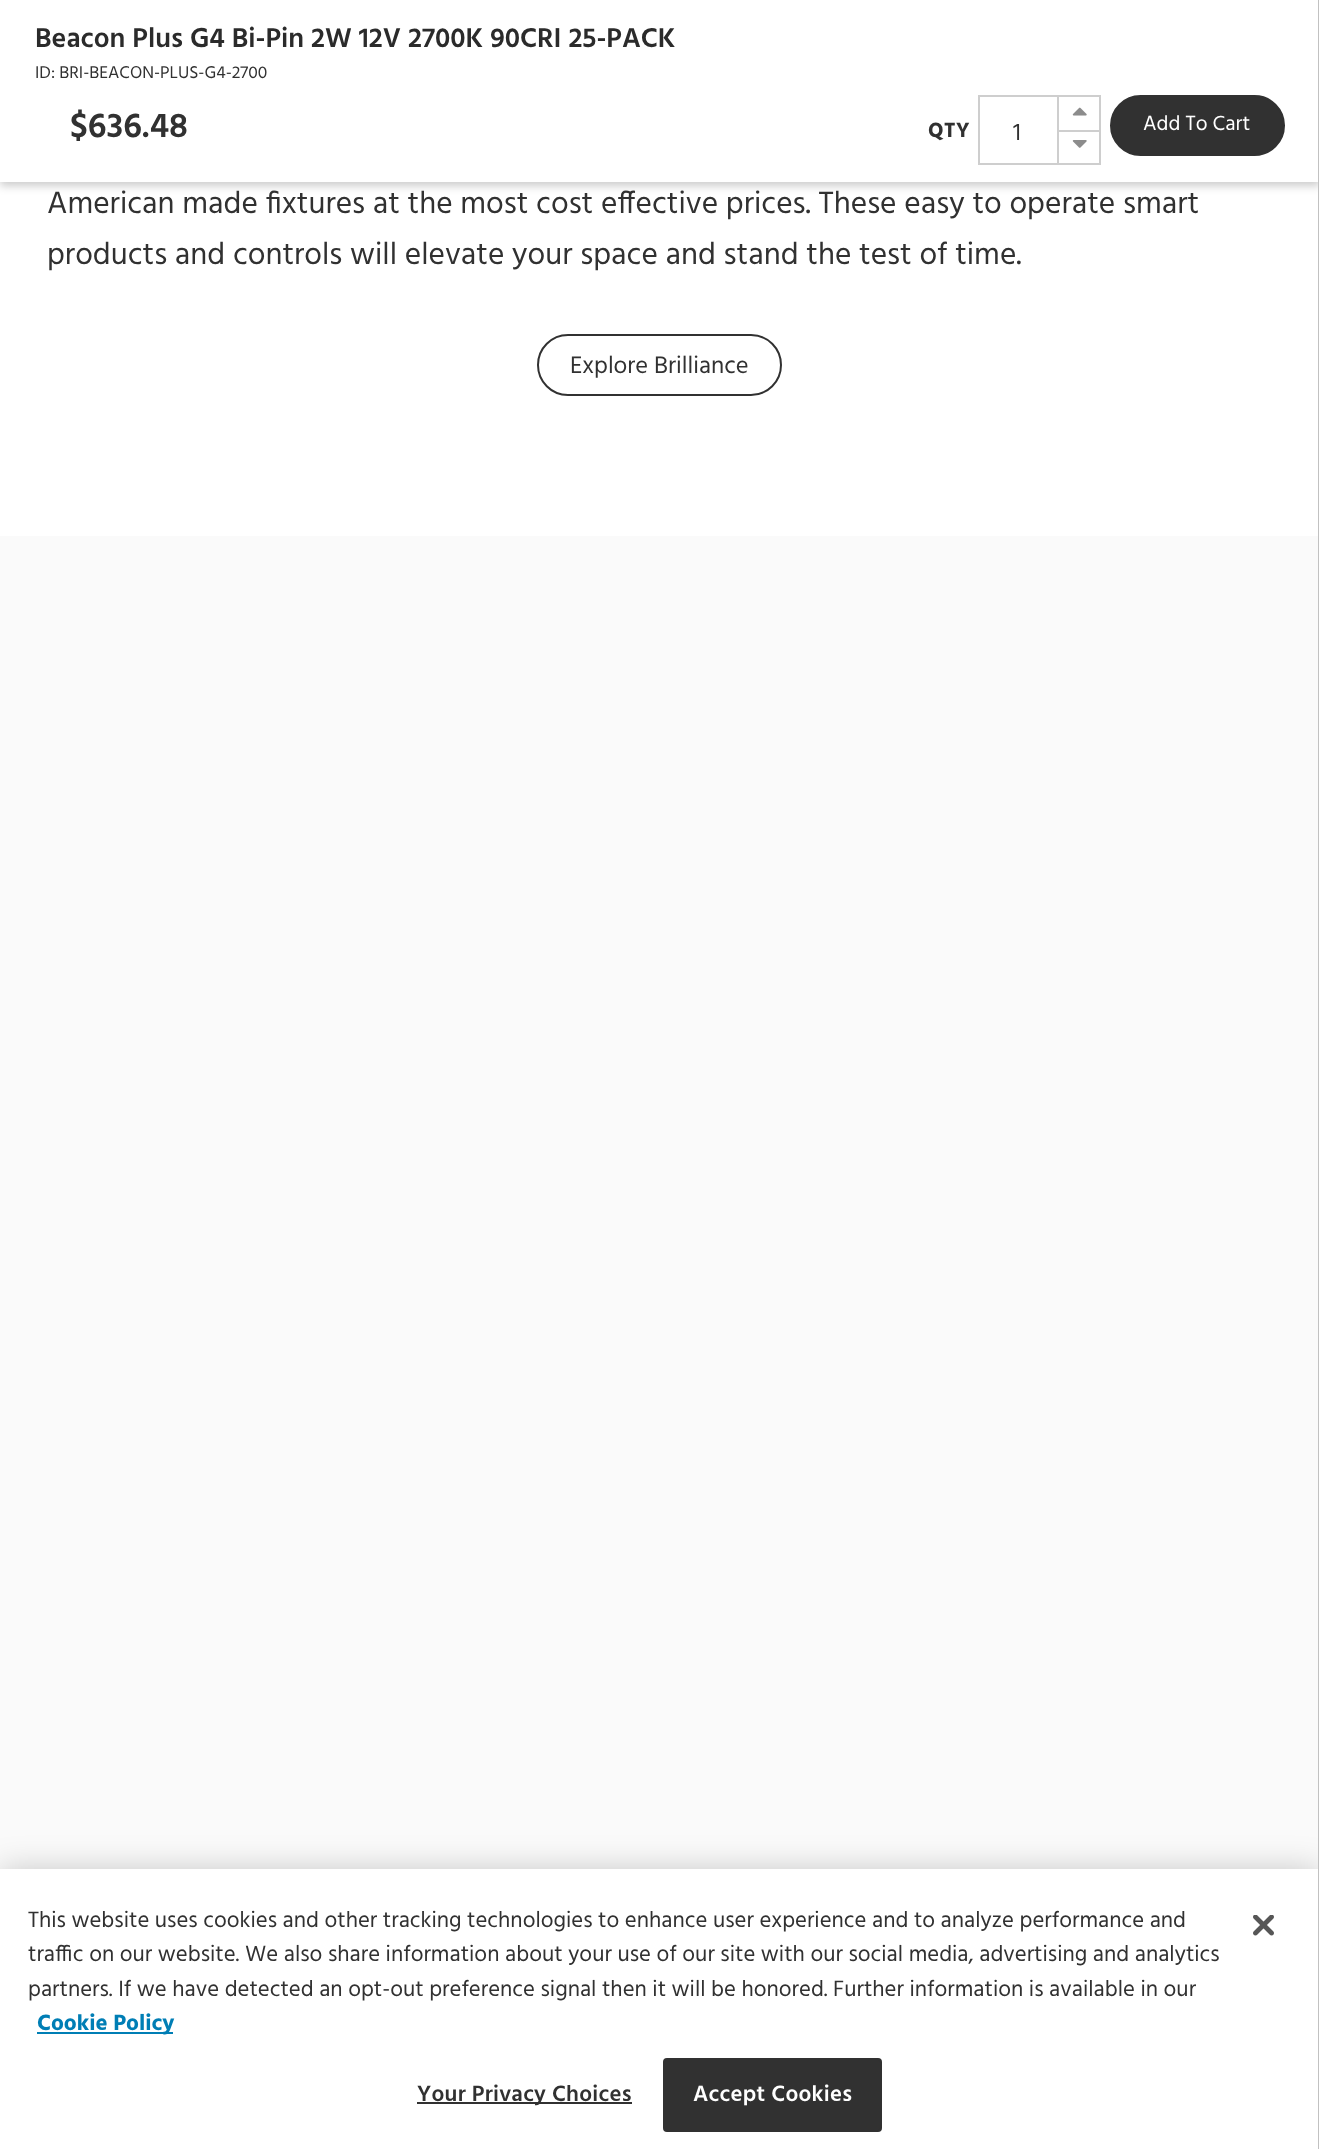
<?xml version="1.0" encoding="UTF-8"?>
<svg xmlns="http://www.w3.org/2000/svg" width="1319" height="2149">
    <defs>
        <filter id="blur1" x="-50%" y="-200%" width="200%" height="500%"><feGaussianBlur stdDeviation="4.5"/></filter>
        <filter id="blur2" x="-50%" y="-200%" width="200%" height="500%"><feGaussianBlur stdDeviation="16"/></filter>
    </defs>
    <rect width="100%" height="100%" fill="#FAFAFA"/>
    <rect x="0" y="182" width="1318" height="354" fill="#FFFFFF"/>
    <rect x="0" y="4" width="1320" height="182" fill="#000000" fill-opacity="0.2" filter="url(#blur1)"/>
    <rect x="0" y="0" width="1318" height="182" fill="#FFFFFF"/>
    <text x="35" y="47" font-family="Hind" font-size="28" font-weight="600" fill="#2B2B2B">Beacon Plus G4 Bi-Pin 2W 12V 2700K 90CRI 25-PACK</text>
    <text x="35" y="78" font-family="Hind" font-size="17.5" fill="#313131">ID: BRI-BEACON-PLUS-G4-2700</text>
    <text x="70" y="137" font-family="Hind" font-size="35" font-weight="600" fill="#313131">$636.48</text>
    <rect x="979" y="96" width="121" height="68" fill="none" stroke="#CECECE" stroke-width="2"/>
    <text x="928" y="137" font-family="Hind" font-size="21" font-weight="700" letter-spacing="0.5" fill="#313131">QTY</text>
    <text x="1013" y="140" font-family="Hind" font-size="24.5" fill="#313131">1</text>
    <rect x="1057" y="130" width="42" height="2" fill="#CECECE"/>
    <rect x="1057" y="96" width="2" height="69" fill="#CECECE"/>
    <image x="1072" y="107" width="15" height="9" href="img_01.png"/>
    <image x="1072" y="140" width="15" height="8" href="img_02.png"/>
    <rect x="1111" y="96" width="173" height="59" rx="29.5" fill="#313131" stroke="#313131" stroke-width="2"/>
    <text x="1143" y="130" font-family="Hind" font-size="21" fill="#FFFFFF">Add To Cart</text>
    <text font-family="Hind" font-size="31.5" fill="#313131">
        <tspan x="47" y="213">American made fixtures at the most cost effective prices. These easy to operate smart</tspan>
        <tspan x="47" y="264">products and controls will elevate your space and stand the test of time.</tspan>
    </text>
    <rect x="538" y="335" width="243" height="60" rx="30" fill="none" stroke="#313131" stroke-width="2"/>
    <text x="570" y="373" font-family="Hind" font-size="24.5" fill="#313131">Explore Brilliance</text>
    <rect x="0" y="1869" width="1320" height="280" fill="#000000" fill-opacity="0.2" filter="url(#blur2)"/>
    <rect x="1318" y="0" width="1" height="2149" fill="#C1C1C1"/>
    <rect x="0" y="1869" width="1318" height="280" fill="#FFFFFF"/>
    <text font-family="Hind" font-size="22.75" fill="#313131">
        <tspan x="28" y="1927">This website uses cookies and other tracking technologies to enhance user experience and to analyze performance and</tspan>
        <tspan x="28" y="1961">traffic on our website. We also share information about your use of our site with our social media, advertising and analytics</tspan>
        <tspan x="28" y="1996">partners. If we have detected an opt-out preference signal then it will be honored. Further information is available in our</tspan>
    </text>
    <rect x="37" y="2032" width="136" height="2" fill="#007EB5"/>
    <text x="37" y="2030" font-family="Hind" font-size="22.75" font-weight="700" fill="#007EB5">Cookie Policy</text>
    <rect x="417" y="2102" width="215" height="2" fill="#313131"/>
    <text x="417" y="2101" font-family="Hind" font-size="22.75" font-weight="600" letter-spacing="0.25" fill="#313131">Your Privacy Choices</text>
    <rect x="664" y="2059" width="217" height="72" rx="3" fill="#313131" stroke="#313131" stroke-width="2"/>
    <text x="693" y="2101" font-family="Hind" font-size="22.75" font-weight="600" letter-spacing="0.25" fill="#FFFFFF">Accept Cookies</text>
    <image x="1253" y="1915" width="21" height="21" href="img_03.png"/>
</svg>
